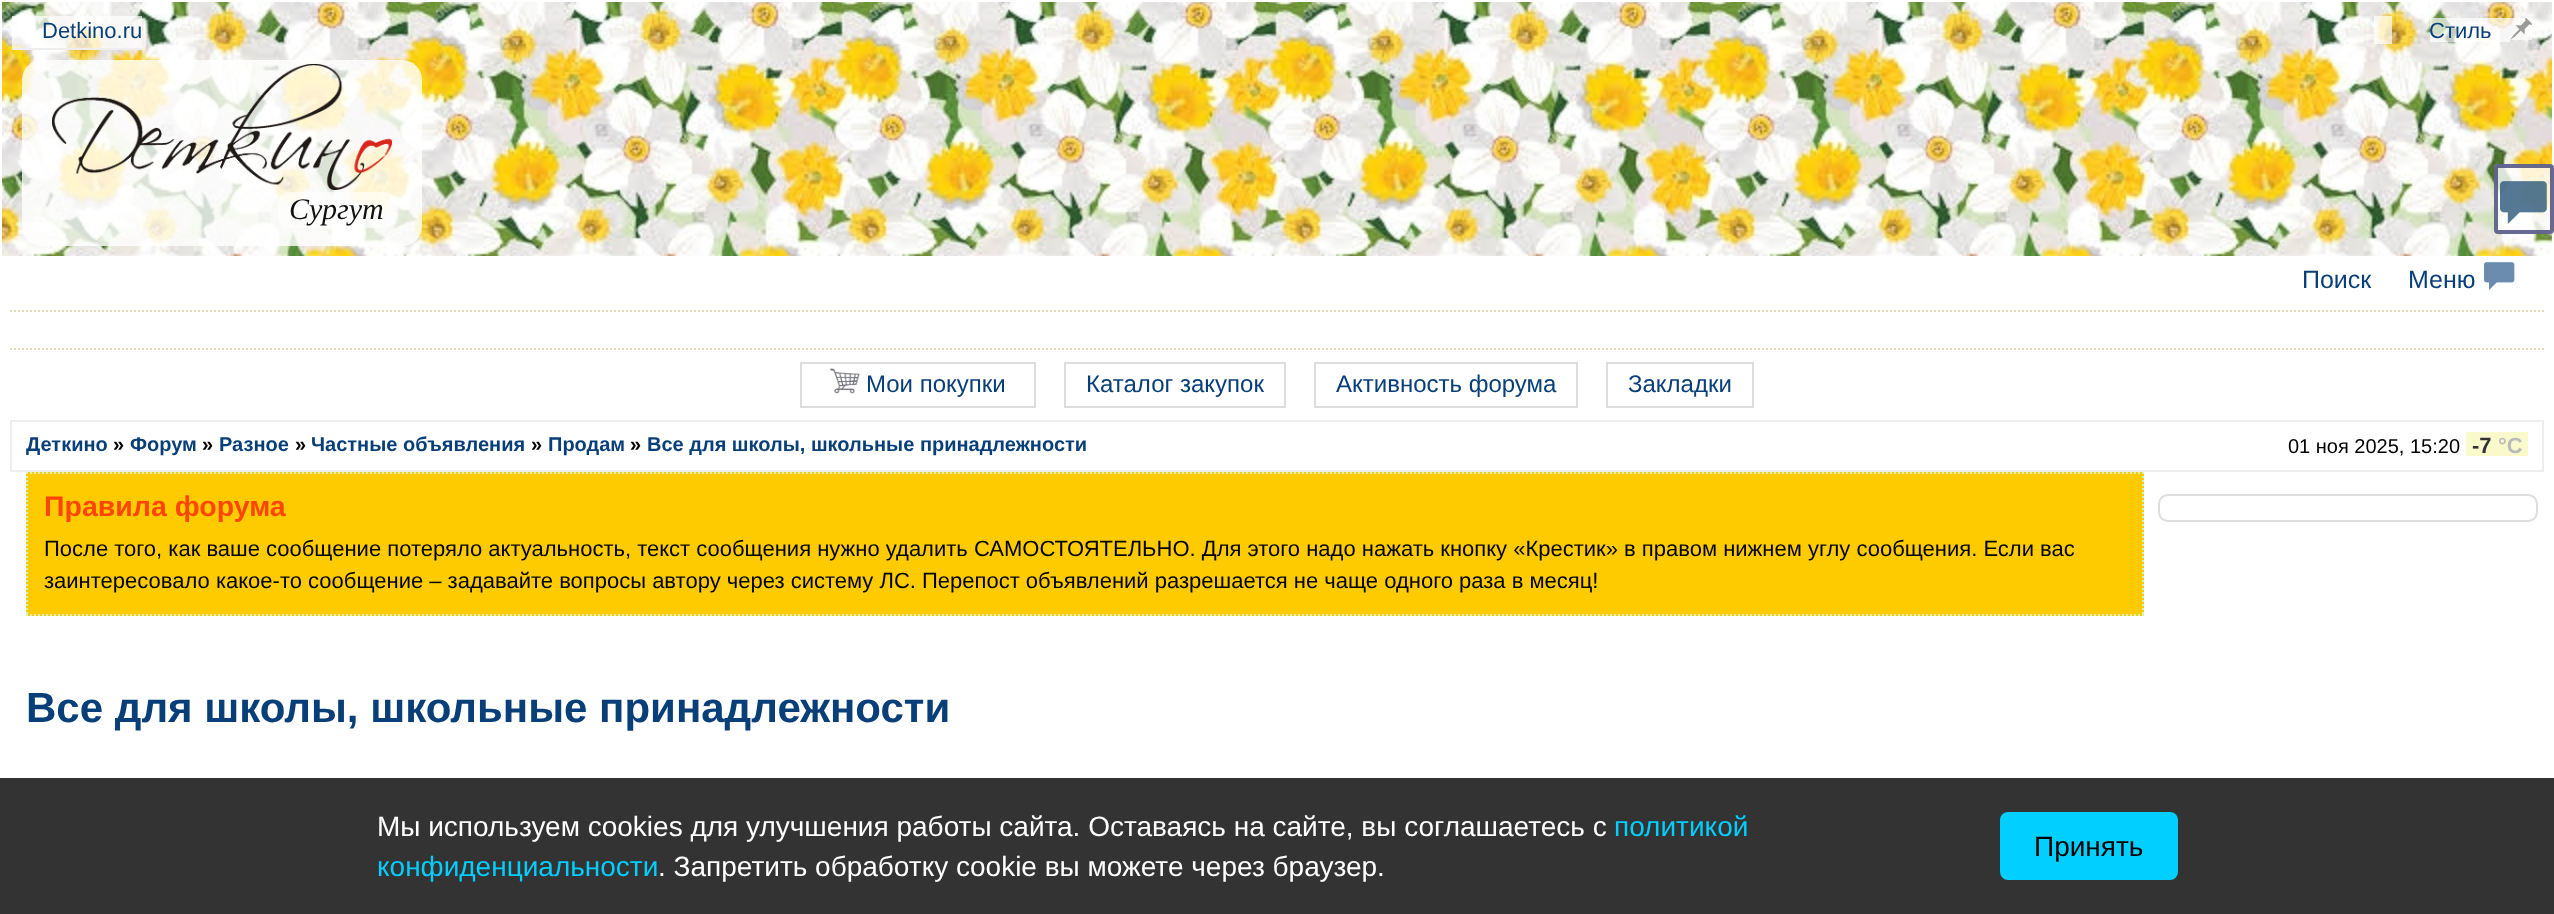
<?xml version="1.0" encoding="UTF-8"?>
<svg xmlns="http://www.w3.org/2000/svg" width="2554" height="914">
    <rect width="100%" height="100%" fill="#FFFFFF"/>
    <image x="2" y="2" width="2550" height="254" href="img_01.png"/>
    <rect x="12" y="16" width="130" height="32" fill="#FFFFFF" fill-opacity="0.7"/>
    <rect x="12" y="48" width="130" height="2" fill="#EEEEEE"/>
    <text x="42" y="38" font-family="Liberation Sans" font-size="22" fill="#083F78">Detkino.ru</text>
    <rect x="2374" y="16" width="18" height="28" fill="#FFFFFF" fill-opacity="0.7"/>
    <rect x="2430" y="18" width="62" height="24" fill="#FFFFFF" fill-opacity="0.7"/>
    <rect x="2492" y="18" width="18" height="24" fill="#FFFFFF" fill-opacity="0.7"/>
    <rect x="2510" y="18" width="22" height="22" fill="#FFFFFF" fill-opacity="0.7"/>
    <text x="2429" y="38" font-family="Liberation Sans" font-size="22" fill="#083F78">Стиль</text>
    <image x="2510" y="18" width="22" height="22" href="img_02.png"/>
    <rect x="22" y="60" width="400" height="186" rx="20" fill="#FFFFFF" fill-opacity="0.8"/>
    <image x="52" y="64" width="340" height="126" href="img_03.png"/>
    <rect x="278" y="192" width="118" height="36" rx="12" fill="#FFFFFF" fill-opacity="0.6"/>
    <text x="289" y="219" font-family="Liberation Serif" font-size="30" font-style="italic" fill="#111111">Сургут</text>
    <text x="2302" y="288" font-family="Liberation Sans" font-size="25" fill="#083F78">Поиск</text>
    <text x="2408" y="288" font-family="Liberation Sans" font-size="25" fill="#083F78">Меню</text>
    <image x="2484" y="262" width="31" height="28" href="img_04.png"/>
    <path d="M 10 311 H 2544" fill="none" stroke="#E2D9B3" stroke-width="2" stroke-dasharray="2 2"/>
    <path d="M 10 349 H 2544" fill="none" stroke="#E2D9B3" stroke-width="2" stroke-dasharray="2 2"/>
    <rect x="801" y="363" width="234" height="44" fill="none" stroke="#DDDDDD" stroke-width="2"/>
    <image x="830" y="368" width="30" height="26" href="img_05.png"/>
    <text x="866" y="392" font-family="Liberation Sans" font-size="24" fill="#083F78">Мои покупки</text>
    <rect x="1065" y="363" width="220" height="44" fill="none" stroke="#DDDDDD" stroke-width="2"/>
    <text x="1086" y="392" font-family="Liberation Sans" font-size="24" fill="#083F78">Каталог закупок</text>
    <rect x="1315" y="363" width="262" height="44" fill="none" stroke="#DDDDDD" stroke-width="2"/>
    <text x="1336" y="392" font-family="Liberation Sans" font-size="24" fill="#083F78">Активность форума</text>
    <rect x="1607" y="363" width="146" height="44" fill="none" stroke="#DDDDDD" stroke-width="2"/>
    <text x="1628" y="392" font-family="Liberation Sans" font-size="24" fill="#083F78">Закладки</text>
    <rect x="10" y="420" width="2534" height="2" fill="#EEEEEE"/>
    <rect x="2542" y="420" width="2" height="52" fill="#EEEEEE"/>
    <rect x="10" y="470" width="2534" height="2" fill="#EEEEEE"/>
    <rect x="10" y="420" width="2" height="52" fill="#EEEEEE"/>
    <text x="26" y="451" font-family="Liberation Sans" font-size="20" font-weight="700" fill="#083F78">Деткино</text>
    <text x="113" y="451" font-family="Liberation Sans" font-size="20" font-weight="700" fill="#000000">»</text>
    <text x="130" y="451" font-family="Liberation Sans" font-size="20" font-weight="700" fill="#083F78">Форум</text>
    <text x="202" y="451" font-family="Liberation Sans" font-size="20" font-weight="700" fill="#000000">»</text>
    <text x="219" y="451" font-family="Liberation Sans" font-size="20" font-weight="700" fill="#083F78">Разное</text>
    <text x="295" y="451" font-family="Liberation Sans" font-size="20" font-weight="700" fill="#000000">»</text>
    <text x="311" y="451" font-family="Liberation Sans" font-size="20" font-weight="700" fill="#083F78">Частные объявления</text>
    <text x="531" y="451" font-family="Liberation Sans" font-size="20" font-weight="700" fill="#000000">»</text>
    <text x="548" y="451" font-family="Liberation Sans" font-size="20" font-weight="700" fill="#083F78">Продам</text>
    <text x="630" y="451" font-family="Liberation Sans" font-size="20" font-weight="700" fill="#000000">»</text>
    <text x="647" y="451" font-family="Liberation Sans" font-size="20" font-weight="700" fill="#083F78">Все для школы, школьные принадлежности</text>
    <text x="2288" y="453" font-family="Liberation Sans" font-size="20" fill="#000000">01 ноя 2025, 15:20</text>
    <rect x="2466" y="432" width="62" height="24" fill="#F9F9CC"/>
    <text x="2472" y="453" font-family="Liberation Sans" font-size="22" font-weight="700" fill="#333333">-7</text>
    <text x="2498" y="453" font-family="Liberation Sans" font-size="22" font-weight="700" fill="#BBBBBB">°C</text>
    <rect x="26" y="472" width="2118" height="144" fill="#FDCB00"/>
    <path d="M 26 473 H 2144" fill="none" stroke="#D7F4B4" stroke-width="2" stroke-dasharray="2 2"/>
    <path d="M 2143 472 V 616" fill="none" stroke="#D7F4B4" stroke-width="2" stroke-dasharray="2 2"/>
    <path d="M 26 615 H 2144" fill="none" stroke="#D7F4B4" stroke-width="2" stroke-dasharray="2 2"/>
    <path d="M 27 472 V 616" fill="none" stroke="#D7F4B4" stroke-width="2" stroke-dasharray="2 2"/>
    <text x="44" y="516" font-family="Liberation Sans" font-size="28.5" font-weight="700" fill="#FF4500">Правила форума</text>
    <text font-family="Liberation Sans" font-size="22" fill="#000000">
        <tspan x="44" y="556">После того, как ваше сообщение потеряло актуальность, текст сообщения нужно удалить САМОСТОЯТЕЛЬНО. Для этого надо нажать кнопку «Крестик» в правом нижнем углу сообщения. Если вас</tspan>
        <tspan x="44" y="588">заинтересовало какое-то сообщение – задавайте вопросы автору через систему ЛС. Перепост объявлений разрешается не чаще одного раза в месяц!</tspan>
    </text>
    <text x="26" y="722" font-family="Liberation Sans" font-size="42" font-weight="700" fill="#083F78">Все для школы, школьные принадлежности</text>
    <rect x="2159" y="495" width="378" height="26" rx="9" fill="none" stroke="#DDDDDD" stroke-width="2"/>
    <rect x="2494" y="164" width="60" height="70" rx="4" fill="#FFFFFF" fill-opacity="0.8"/>
    <rect x="2496" y="166" width="56" height="66" rx="2" fill="none" stroke="#414478" stroke-opacity="0.8" stroke-width="4"/>
    <image x="2500" y="181" width="47" height="43" href="img_06.png"/>
    <rect x="0" y="778" width="2554" height="136" fill="#333333"/>
    <text x="377" y="836" font-family="Liberation Sans" font-size="28" fill="#FFFFFF">Мы используем cookies для улучшения работы сайта. Оставаясь на сайте, вы соглашаетесь с</text>
    <text x="1614" y="836" font-family="Liberation Sans" font-size="28" fill="#00CFFF">политикой</text>
    <text x="377" y="876" font-family="Liberation Sans" font-size="28" fill="#00CFFF">конфиденциальности</text>
    <text x="658" y="876" font-family="Liberation Sans" font-size="28" fill="#FFFFFF">. Запретить обработку cookie вы можете через браузер.</text>
    <rect x="2000" y="812" width="178" height="68" rx="8" fill="#00CFFF"/>
    <text x="2034" y="856" font-family="Liberation Sans" font-size="28" fill="#000000">Принять</text>
</svg>
